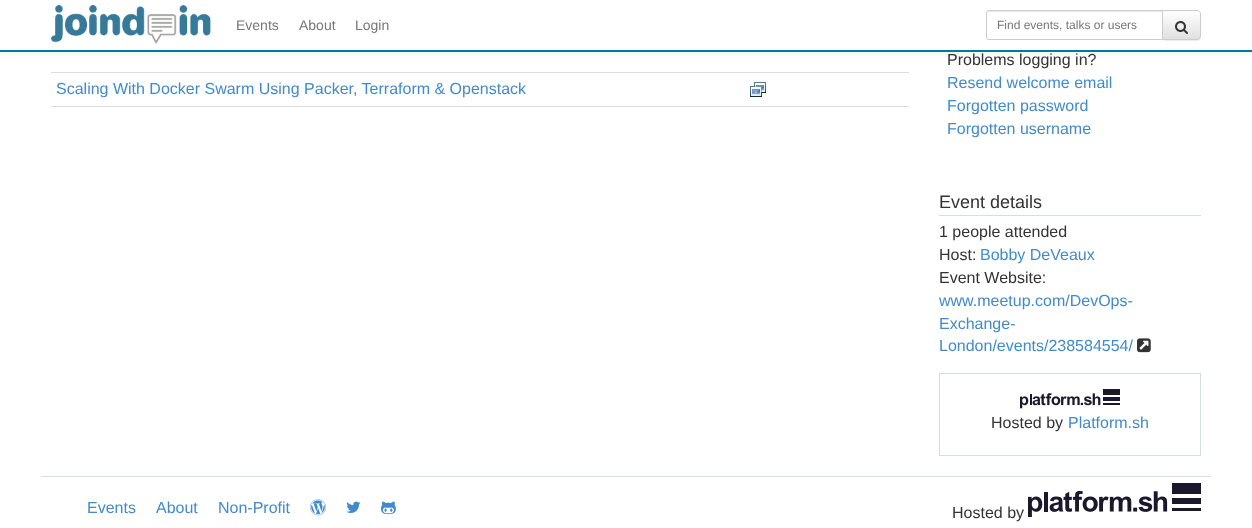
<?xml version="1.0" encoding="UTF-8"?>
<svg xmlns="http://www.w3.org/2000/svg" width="1252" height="528">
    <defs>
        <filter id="blur1" x="-50%" y="-200%" width="200%" height="500%"><feGaussianBlur stdDeviation="2.5"/></filter>
        <filter id="blur2" x="-50%" y="-200%" width="200%" height="500%"><feGaussianBlur stdDeviation="0.5"/></filter>
        <clipPath id="clip1"><path d="M 1162 10 H 1197 C 1199 10 1201 12 1201 14 V 36 C 1201 38 1199 40 1197 40 H 1162 Z"/></clipPath>
        <linearGradient id="g1" gradientUnits="userSpaceOnUse" x1="1182" y1="11" x2="1182" y2="39"><stop offset="0" stop-color="#FFFFFF"/><stop offset="1" stop-color="#E0E0E0"/></linearGradient>
    </defs>
    <rect width="100%" height="100%" fill="#FFFFFF"/>
    <rect x="0" y="1" width="1252" height="52" fill="#000000" fill-opacity="0.07" filter="url(#blur1)"/>
    <rect x="0" y="0" width="1252" height="50" fill="#FFFFFF"/>
    <rect x="0" y="50" width="1252" height="2" fill="#007B97"/>
    <image x="51" y="5" width="160" height="39" href="img_01.png"/>
    <text x="236" y="30" font-family="Liberation Sans" font-size="14" fill="#777777">Events</text>
    <text x="299" y="30" font-family="Liberation Sans" font-size="14" fill="#777777">About</text>
    <text x="355" y="30" font-family="Liberation Sans" font-size="14" fill="#777777">Login</text>
    <rect x="1162" y="11" width="39" height="30" rx="4" fill="#000000" fill-opacity="0.07" filter="url(#blur2)"/>
    <g clip-path="url(#clip1)">
        <rect x="1163" y="11" width="38" height="28" fill="url(#g1)"/>
    </g>
    <path d="M 1162.5 10.5 H 1197 C 1199 10.5 1200.5 12 1200.5 14 V 36 C 1200.5 38 1199 39.5 1197 39.5 H 1162.5 Z" fill="none" stroke="#CCCCCC"/>
    <path d="M 989 10 H 1163 V 40 H 989 C 987.5 40 986 38.5 986 37 V 13 C 986 11.5 987.5 10 989 10 Z" fill="#FFFFFF"/>
    <path d="M 989 12 H 1162 V 11 H 988 C 987 12 987 13 987 14 C 987 13 988 12 989 12 Z" fill="#ECECEC"/>
    <path d="M 989 10.5 H 1162.5 V 39.5 H 989 C 987.5 39.5 986.5 38.5 986.5 37 V 13 C 986.5 11.5 987.5 10.5 989 10.5 Z" fill="none" stroke="#CCCCCC"/>
    <text x="997" y="29" font-family="Liberation Sans" font-size="12" fill="#777777">Find events, talks or users</text>
    <image x="1175" y="21" width="13" height="13" href="img_02.png"/>
    <rect x="51" y="72" width="858" height="1" fill="#DDDDDD"/>
    <rect x="51" y="106" width="858" height="1" fill="#DDDDDD"/>
    <text x="56" y="94" font-family="Liberation Sans" font-size="16" fill="#428BCA">Scaling With Docker Swarm Using Packer, Terraform &amp; Openstack</text>
    <image x="750" y="82" width="16" height="15" href="img_03.png"/>
    <text x="947" y="65" font-family="Liberation Sans" font-size="16" fill="#333333">Problems logging in?</text>
    <text font-family="Liberation Sans" font-size="16" fill="#428BCA">
        <tspan x="947" y="88">Resend welcome email</tspan>
        <tspan x="947" y="111">Forgotten password</tspan>
        <tspan x="947" y="134">Forgotten username</tspan>
    </text>
    <rect x="939" y="215" width="262" height="1" fill="#D7DCDF"/>
    <text x="939" y="208" font-family="Liberation Sans" font-size="18" fill="#333333">Event details</text>
    <text font-family="Liberation Sans" font-size="16" fill="#333333">
        <tspan x="939" y="237">1 people attended</tspan>
        <tspan x="939" y="260">Host:</tspan>
    </text>
    <text x="980" y="260" font-family="Liberation Sans" font-size="16" fill="#428BCA">Bobby DeVeaux</text>
    <text x="939" y="283" font-family="Liberation Sans" font-size="16" fill="#333333">Event Website:</text>
    <text font-family="Liberation Sans" font-size="16" fill="#428BCA">
        <tspan x="939" y="306">www.meetup.com/DevOps-</tspan>
        <tspan x="939" y="329">Exchange-</tspan>
        <tspan x="939" y="351">London/events/238584554/</tspan>
    </text>
    <image x="1137" y="338" width="14" height="15" href="img_04.png"/>
    <rect x="939.5" y="373.5" width="261" height="82" fill="none" stroke="#D7DCDF"/>
    <image x="1020" y="389" width="100" height="20" href="img_05.png"/>
    <text x="991" y="428" font-family="Liberation Sans" font-size="16" fill="#333333">Hosted by</text>
    <text x="1068" y="428" font-family="Liberation Sans" font-size="16" fill="#428BCA">Platform.sh</text>
    <rect x="41" y="476" width="1170" height="1" fill="#D7DCDF"/>
    <text x="87" y="513" font-family="Liberation Sans" font-size="16" fill="#428BCA">Events</text>
    <text x="156" y="513" font-family="Liberation Sans" font-size="16" fill="#428BCA">About</text>
    <text x="218" y="513" font-family="Liberation Sans" font-size="16" fill="#428BCA">Non-Profit</text>
    <image x="310" y="499" width="16" height="17" href="img_06.png"/>
    <image x="346" y="501" width="15" height="12" href="img_07.png"/>
    <image x="381" y="501" width="15" height="14" href="img_08.png"/>
    <text x="952" y="518" font-family="Liberation Sans" font-size="16" fill="#333333">Hosted by</text>
    <image x="1028" y="483" width="173" height="34" href="img_09.png"/>
</svg>
